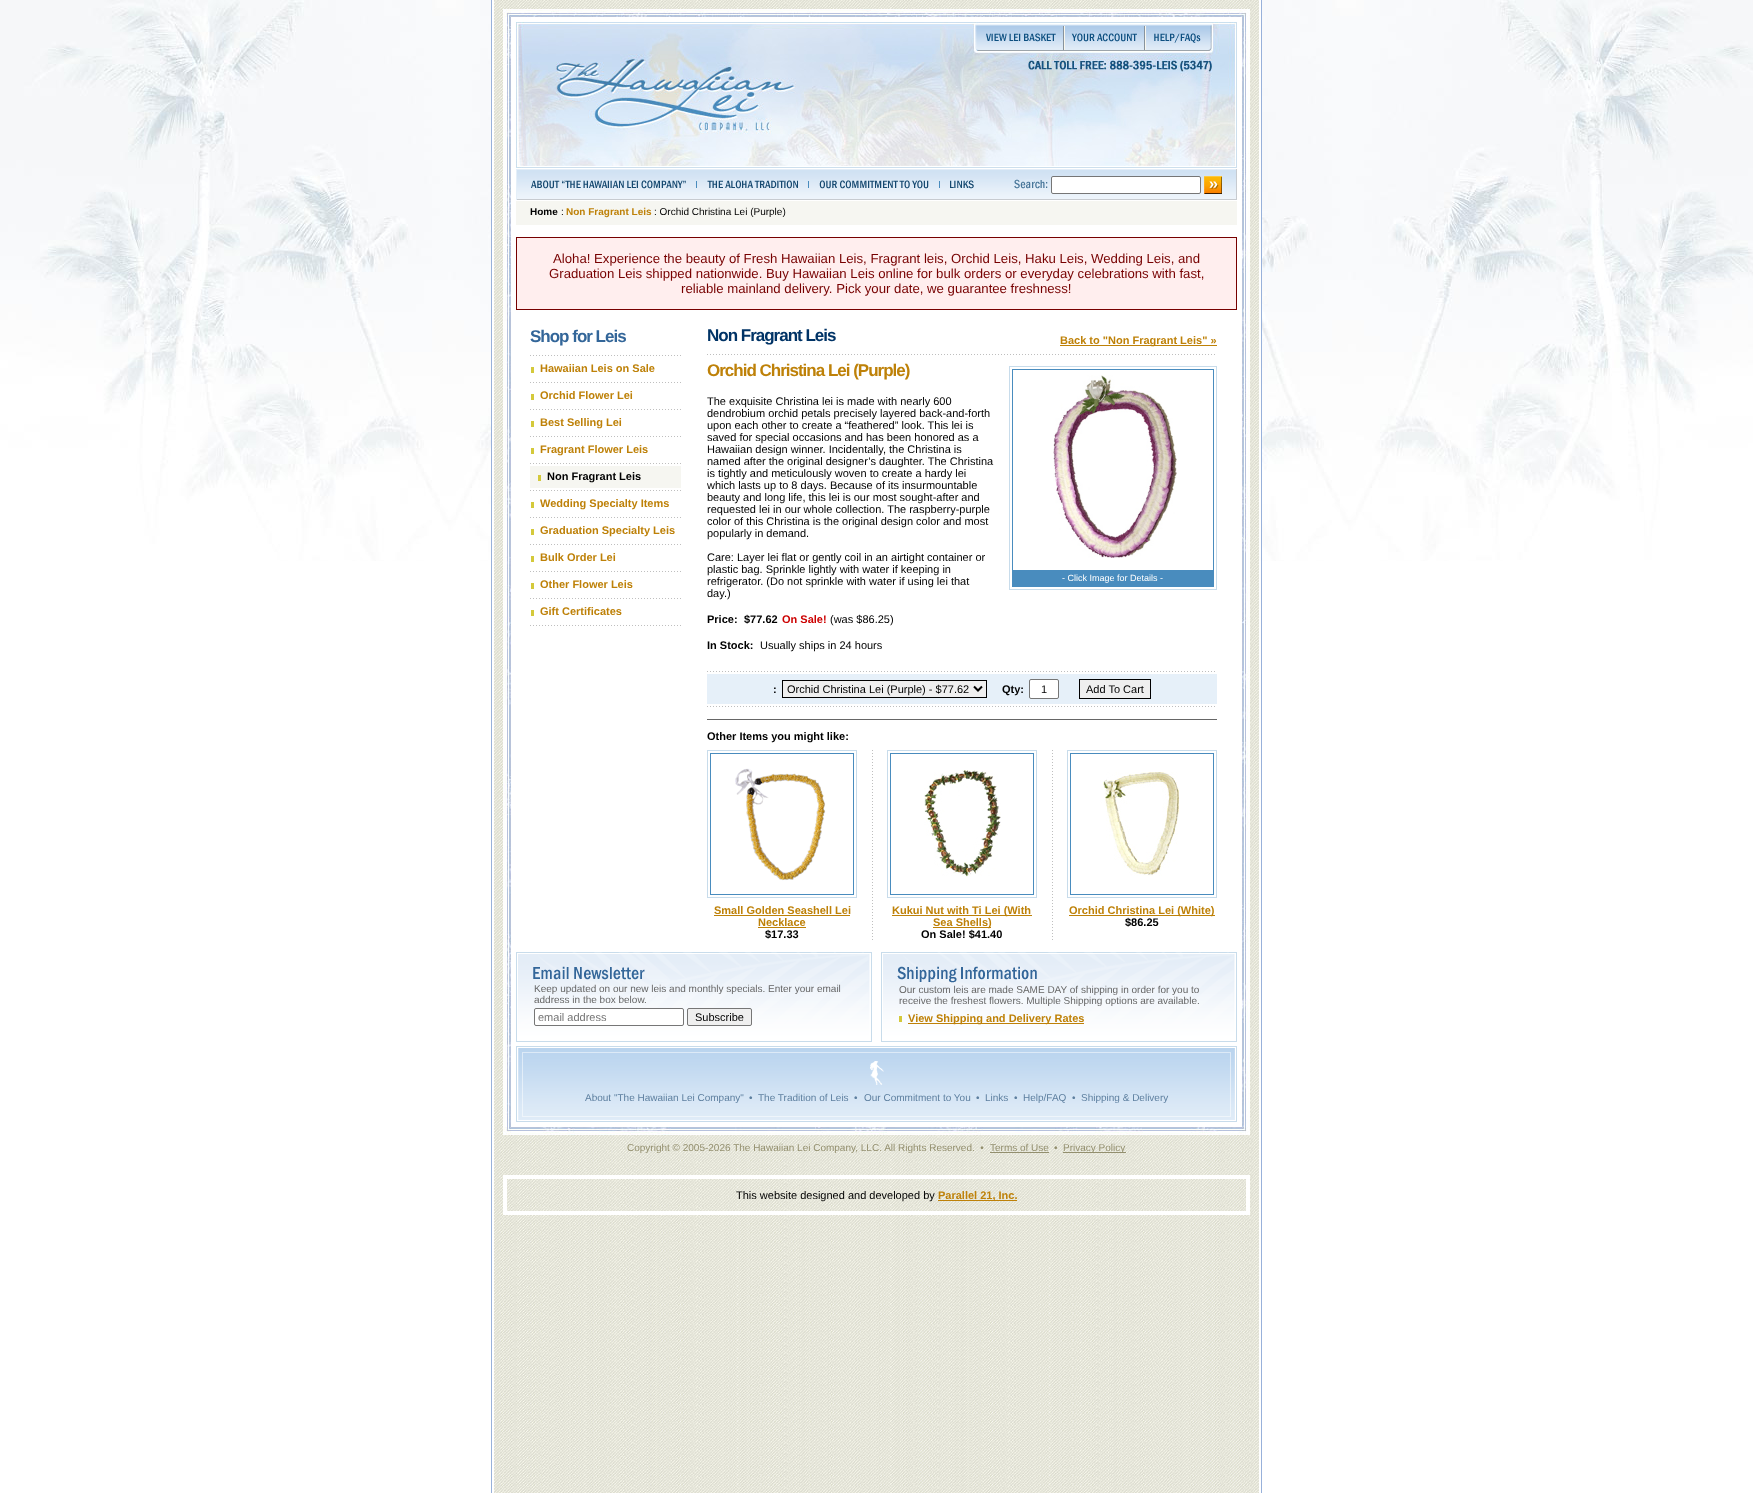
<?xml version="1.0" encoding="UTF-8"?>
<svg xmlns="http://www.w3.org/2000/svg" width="1753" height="1493">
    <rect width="100%" height="100%" fill="#FFFFFF"/>
    <image x="0" y="0" width="1753" height="561" href="img_01.png"/>
    <rect x="492" y="0" width="2" height="456" fill="#FFFFFF"/>
    <rect x="491" y="0" width="1" height="1493" fill="#98B1DA"/>
    <image x="494" y="0" width="765" height="1493" href="img_02.png"/>
    <image x="503" y="9" width="8" height="8" href="img_03.png"/>
    <image x="511" y="9" width="731" height="8" href="img_04.png"/>
    <image x="1242" y="9" width="8" height="8" href="img_05.png"/>
    <image x="503" y="17" width="8" height="1110" href="img_06.png"/>
    <rect x="511" y="17" width="731" height="1110" fill="#FFFFFF"/>
    <image x="516" y="22" width="721" height="146" href="img_07.png"/>
    <image x="975" y="24" width="89" height="27" href="img_08.png"/>
    <image x="1064" y="24" width="81" height="27" href="img_09.png"/>
    <image x="1145" y="24" width="67" height="27" href="img_10.png"/>
    <image x="517" y="169" width="719" height="31" href="img_11.png"/>
    <rect x="1236" y="169" width="1" height="31" fill="#C7CBD0"/>
    <rect x="516" y="169" width="1" height="31" fill="#E5EFF8"/>
    <image x="531" y="180" width="155" height="9" href="img_12.png"/>
    <rect x="696" y="181" width="1" height="7" fill="#498CBE"/>
    <image x="707" y="180" width="91" height="9" href="img_13.png"/>
    <rect x="808" y="181" width="1" height="7" fill="#498CBE"/>
    <image x="819" y="180" width="110" height="9" href="img_14.png"/>
    <rect x="939" y="181" width="1" height="7" fill="#498CBE"/>
    <image x="950" y="180" width="24" height="9" href="img_15.png"/>
    <image x="1014" y="179" width="34" height="10" href="img_16.png"/>
    <rect x="1051.5" y="176.5" width="149" height="17" rx="1.5" fill="#FFFFFF" stroke="#767676"/>
    <image x="1204" y="176" width="18" height="18" href="img_17.png"/>
    <rect x="516" y="201" width="721" height="24" fill="#F6F6F1"/>
    <text x="530" y="215" font-family="Liberation Sans" font-size="10" font-weight="700" fill="#000000">Home</text>
    <text x="561" y="215" font-family="Liberation Sans" font-size="10" fill="#000000">:</text>
    <text x="566" y="215" font-family="Liberation Sans" font-size="10" font-weight="700" fill="#BE8108">Non Fragrant Leis</text>
    <text x="654" y="215" font-family="Liberation Sans" font-size="10" fill="#000000">: Orchid Christina Lei (Purple)</text>
    <rect x="516.5" y="237.5" width="720" height="72" fill="#FFEEEE" stroke="#770000"/>
    <text x="553" y="263" font-family="Liberation Sans" font-size="13.2" fill="#770000">Aloha! Experience the beauty of Fresh Hawaiian Leis, Fragrant leis, Orchid Leis, Haku Leis, Wedding Leis, and</text>
    <text x="549" y="278" font-family="Liberation Sans" font-size="13.2" fill="#770000">Graduation Leis shipped nationwide. Buy Hawaiian Leis online for bulk orders or everyday celebrations with fast,</text>
    <text x="681" y="293" font-family="Liberation Sans" font-size="13.2" fill="#770000">reliable mainland delivery. Pick your date, we guarantee freshness!</text>
    <text x="530" y="342" font-family="Liberation Sans" font-size="17" font-weight="700" letter-spacing="-1" fill="#336699">Shop for Leis</text>
    <image x="530" y="355" width="151" height="1" href="img_18.png"/>
    <rect x="531" y="367" width="3" height="6" fill="#D4C93B"/>
    <text x="540" y="372" font-family="Liberation Sans" font-size="11" font-weight="700" fill="#BE8108">Hawaiian Leis on Sale</text>
    <image x="530" y="382" width="151" height="1" href="img_18.png"/>
    <rect x="531" y="394" width="3" height="6" fill="#D4C93B"/>
    <text x="540" y="399" font-family="Liberation Sans" font-size="11" font-weight="700" fill="#BE8108">Orchid Flower Lei</text>
    <image x="530" y="409" width="151" height="1" href="img_18.png"/>
    <rect x="531" y="421" width="3" height="6" fill="#D4C93B"/>
    <text x="540" y="426" font-family="Liberation Sans" font-size="11" font-weight="700" fill="#BE8108">Best Selling Lei</text>
    <image x="530" y="436" width="151" height="1" href="img_18.png"/>
    <rect x="531" y="448" width="3" height="6" fill="#D4C93B"/>
    <text x="540" y="453" font-family="Liberation Sans" font-size="11" font-weight="700" fill="#BE8108">Fragrant Flower Leis</text>
    <image x="530" y="463" width="151" height="1" href="img_18.png"/>
    <rect x="530" y="466" width="151" height="22" fill="#F6F6F1"/>
    <rect x="538" y="475" width="3" height="6" fill="#D4C93B"/>
    <text x="547" y="480" font-family="Liberation Sans" font-size="11" font-weight="700" fill="#000000">Non Fragrant Leis</text>
    <image x="530" y="490" width="151" height="1" href="img_18.png"/>
    <rect x="531" y="502" width="3" height="6" fill="#D4C93B"/>
    <text x="540" y="507" font-family="Liberation Sans" font-size="11" font-weight="700" fill="#BE8108">Wedding Specialty Items</text>
    <image x="530" y="517" width="151" height="1" href="img_18.png"/>
    <rect x="531" y="529" width="3" height="6" fill="#D4C93B"/>
    <text x="540" y="534" font-family="Liberation Sans" font-size="11" font-weight="700" fill="#BE8108">Graduation Specialty Leis</text>
    <image x="530" y="544" width="151" height="1" href="img_18.png"/>
    <rect x="531" y="556" width="3" height="6" fill="#D4C93B"/>
    <text x="540" y="561" font-family="Liberation Sans" font-size="11" font-weight="700" fill="#BE8108">Bulk Order Lei</text>
    <image x="530" y="571" width="151" height="1" href="img_18.png"/>
    <rect x="531" y="583" width="3" height="6" fill="#D4C93B"/>
    <text x="540" y="588" font-family="Liberation Sans" font-size="11" font-weight="700" fill="#BE8108">Other Flower Leis</text>
    <image x="530" y="598" width="151" height="1" href="img_18.png"/>
    <rect x="531" y="610" width="3" height="6" fill="#D4C93B"/>
    <text x="540" y="615" font-family="Liberation Sans" font-size="11" font-weight="700" fill="#BE8108">Gift Certificates</text>
    <image x="530" y="625" width="151" height="1" href="img_18.png"/>
    <text x="707" y="341" font-family="Liberation Sans" font-size="17" font-weight="700" letter-spacing="-1" fill="#003366">Non Fragrant Leis</text>
    <rect x="1060" y="345" width="157" height="1" fill="#BE8108"/>
    <text x="1060" y="344" font-family="Liberation Sans" font-size="11" font-weight="700" fill="#BE8108">Back to "Non Fragrant Leis" »</text>
    <image x="707" y="354" width="508" height="1" href="img_19.png"/>
    <text x="707" y="376" font-family="Liberation Sans" font-size="17" font-weight="700" letter-spacing="-1" fill="#BE8108">Orchid Christina Lei (Purple)</text>
    <text font-family="Liberation Sans" font-size="11" fill="#000000">
        <tspan x="707" y="405">The exquisite Christina lei is made with nearly 600</tspan>
        <tspan x="707" y="417">dendrobium orchid petals precisely layered back-and-forth</tspan>
        <tspan x="707" y="429">upon each other to create a “feathered” look. This lei is</tspan>
        <tspan x="707" y="441">saved for special occasions and has been honored as a</tspan>
        <tspan x="707" y="453">Hawaiian design winner. Incidentally, the Christina is</tspan>
        <tspan x="707" y="465">named after the original designer’s daughter. The Christina</tspan>
        <tspan x="707" y="477">is tightly and meticulously woven to create a hardy lei</tspan>
        <tspan x="707" y="489">which lasts up to 8 days. Because of its insurmountable</tspan>
        <tspan x="707" y="501">beauty and long life, this lei is our most sought-after and</tspan>
        <tspan x="707" y="513">requested lei in our whole collection. The raspberry-purple</tspan>
        <tspan x="707" y="525">color of this Christina is the original design color and most</tspan>
        <tspan x="707" y="537">popularly in demand.</tspan>
    </text>
    <text font-family="Liberation Sans" font-size="11" fill="#000000">
        <tspan x="707" y="561">Care: Layer lei flat or gently coil in an airtight container or</tspan>
        <tspan x="707" y="573">plastic bag. Sprinkle lightly with water if keeping in</tspan>
        <tspan x="707" y="585">refrigerator. (Do not sprinkle with water if using lei that</tspan>
        <tspan x="707" y="597">day.)</tspan>
    </text>
    <rect x="1009.5" y="366.5" width="207" height="223" fill="none" stroke="#C8DCEB"/>
    <rect x="1012.5" y="369.5" width="201" height="201" fill="none" stroke="#498CBE"/>
    <image x="1053" y="375" width="124" height="183" href="img_20.png"/>
    <rect x="1012" y="571" width="202" height="16" fill="#498CBE"/>
    <text x="1062" y="581" font-family="Liberation Sans" font-size="9" fill="#FFFFFF">- Click Image for Details -</text>
    <text x="707" y="623" font-family="Liberation Sans" font-size="11" font-weight="700" fill="#000000">Price:</text>
    <text x="744" y="623" font-family="Liberation Sans" font-size="11" font-weight="700" fill="#000000">$77.62</text>
    <text x="782" y="623" font-family="Liberation Sans" font-size="11" font-weight="700" fill="#CC0000">On Sale!</text>
    <text x="830" y="623" font-family="Liberation Sans" font-size="11" fill="#000000">(was $86.25)</text>
    <text x="707" y="649" font-family="Liberation Sans" font-size="11" font-weight="700" fill="#000000">In Stock:</text>
    <text x="760" y="649" font-family="Liberation Sans" font-size="11" fill="#000000">Usually ships in 24 hours</text>
    <image x="707" y="671" width="508" height="1" href="img_19.png"/>
    <rect x="707" y="674" width="510" height="30" fill="#E6F0F9"/>
    <text x="773" y="693" font-family="Liberation Sans" font-size="11" font-weight="700" fill="#000000">:</text>
    <rect x="782.5" y="680.5" width="204" height="17" fill="#EFEFEF" stroke="#000000"/>
    <path d="M 974 686.5 L 978 690.5 L 982 686.5" fill="none" stroke="#000000" stroke-width="2"/>
    <text x="787" y="693" font-family="Liberation Sans" font-size="11" fill="#000000">Orchid Christina Lei (Purple) - $77.62</text>
    <text x="1002" y="693" font-family="Liberation Sans" font-size="11" font-weight="700" fill="#000000">Qty:</text>
    <rect x="1029.5" y="679.5" width="29" height="19" rx="1.5" fill="#FFFFFF" stroke="#767676"/>
    <text x="1041" y="693" font-family="Liberation Sans" font-size="11" fill="#000000">1</text>
    <rect x="1079.5" y="679.5" width="71" height="19" fill="#EFEFEF" stroke="#000000"/>
    <text x="1086" y="693" font-family="Liberation Sans" font-size="11" fill="#000000">Add To Cart</text>
    <image x="707" y="706" width="508" height="1" href="img_19.png"/>
    <rect x="707" y="719" width="510" height="1" fill="#666666"/>
    <text x="707" y="740" font-family="Liberation Sans" font-size="11" font-weight="700" fill="#000000">Other Items you might like:</text>
    <rect x="707.5" y="750.5" width="149" height="147" fill="none" stroke="#C8DCEB"/>
    <rect x="710.5" y="753.5" width="143" height="141" fill="none" stroke="#498CBE"/>
    <image x="735" y="768" width="91" height="113" href="img_21.png"/>
    <text x="714" y="914" font-family="Liberation Sans" font-size="11" font-weight="700" fill="#BE8108">Small Golden Seashell Lei</text>
    <rect x="714" y="915" width="136" height="1" fill="#BE8108"/>
    <text x="758" y="926" font-family="Liberation Sans" font-size="11" font-weight="700" fill="#BE8108">Necklace</text>
    <rect x="758" y="927" width="48" height="1" fill="#BE8108"/>
    <text x="765" y="938" font-family="Liberation Sans" font-size="11" font-weight="700" fill="#000000">$17.33</text>
    <image x="872" y="750" width="1" height="190" href="img_22.png"/>
    <rect x="887.5" y="750.5" width="149" height="147" fill="none" stroke="#C8DCEB"/>
    <rect x="890.5" y="753.5" width="143" height="141" fill="none" stroke="#498CBE"/>
    <image x="924" y="770" width="77" height="107" href="img_23.png"/>
    <rect x="892" y="915" width="140" height="1" fill="#BE8108"/>
    <text x="892" y="914" font-family="Liberation Sans" font-size="11" font-weight="700" fill="#BE8108">Kukui Nut with Ti Lei (With</text>
    <rect x="933" y="927" width="58" height="1" fill="#BE8108"/>
    <text x="933" y="926" font-family="Liberation Sans" font-size="11" font-weight="700" fill="#BE8108">Sea Shells)</text>
    <text x="921" y="938" font-family="Liberation Sans" font-size="11" font-weight="700" fill="#000000">On Sale! $41.40</text>
    <image x="1052" y="750" width="1" height="190" href="img_22.png"/>
    <rect x="1067.5" y="750.5" width="149" height="147" fill="none" stroke="#C8DCEB"/>
    <rect x="1070.5" y="753.5" width="143" height="141" fill="none" stroke="#498CBE"/>
    <image x="1100" y="772" width="80" height="104" href="img_24.png"/>
    <rect x="1069" y="915" width="146" height="1" fill="#BE8108"/>
    <text x="1069" y="914" font-family="Liberation Sans" font-size="11" font-weight="700" fill="#BE8108">Orchid Christina Lei (White)</text>
    <text x="1125" y="926" font-family="Liberation Sans" font-size="11" font-weight="700" fill="#000000">$86.25</text>
    <image x="516" y="952" width="356" height="90" href="img_25.png"/>
    <text font-family="Liberation Sans" font-size="10" fill="#666666">
        <tspan x="534" y="992">Keep updated on our new leis and monthly specials. Enter your email</tspan>
        <tspan x="534" y="1003">address in the box below.</tspan>
    </text>
    <rect x="534.5" y="1008.5" width="149" height="17" rx="1.5" fill="#FFFFFF" stroke="#767676"/>
    <text x="538" y="1021" font-family="Liberation Sans" font-size="11" fill="#757575">email address</text>
    <rect x="687.5" y="1008.5" width="64" height="17" rx="1.5" fill="#EFEFEF" stroke="#767676"/>
    <text x="695" y="1021" font-family="Liberation Sans" font-size="11" fill="#000000">Subscribe</text>
    <image x="881" y="952" width="356" height="90" href="img_26.png"/>
    <text font-family="Liberation Sans" font-size="10" fill="#666666">
        <tspan x="899" y="993">Our custom leis are made SAME DAY of shipping in order for you to</tspan>
        <tspan x="899" y="1004">receive the freshest flowers. Multiple Shipping options are available.</tspan>
    </text>
    <rect x="899" y="1016" width="3" height="6" fill="#D4C93B"/>
    <rect x="908" y="1023" width="176" height="1" fill="#BE8108"/>
    <text x="908" y="1022" font-family="Liberation Sans" font-size="11" font-weight="700" fill="#BE8108">View Shipping and Delivery Rates</text>
    <image x="516" y="1046" width="7" height="76" href="img_27.png"/>
    <image x="523" y="1046" width="707" height="76" href="img_28.png"/>
    <image x="870" y="1061" width="14" height="24" href="img_29.png"/>
    <text x="585" y="1101" font-family="Liberation Sans" font-size="10" fill="#5D7F9F">About "The Hawaiian Lei Company"</text>
    <text x="749" y="1101" font-family="Liberation Sans" font-size="10" fill="#5D7F9F">•</text>
    <text x="758" y="1101" font-family="Liberation Sans" font-size="10" fill="#5D7F9F">The Tradition of Leis</text>
    <text x="854" y="1101" font-family="Liberation Sans" font-size="10" fill="#5D7F9F">•</text>
    <text x="864" y="1101" font-family="Liberation Sans" font-size="10" fill="#5D7F9F">Our Commitment to You</text>
    <text x="976" y="1101" font-family="Liberation Sans" font-size="10" fill="#5D7F9F">•</text>
    <text x="985" y="1101" font-family="Liberation Sans" font-size="10" fill="#5D7F9F">Links</text>
    <text x="1014" y="1101" font-family="Liberation Sans" font-size="10" fill="#5D7F9F">•</text>
    <text x="1023" y="1101" font-family="Liberation Sans" font-size="10" fill="#5D7F9F">Help/FAQ</text>
    <text x="1072" y="1101" font-family="Liberation Sans" font-size="10" fill="#5D7F9F">•</text>
    <text x="1081" y="1101" font-family="Liberation Sans" font-size="10" fill="#5D7F9F">Shipping &amp; Delivery</text>
    <image x="1230" y="1046" width="7" height="76" href="img_30.png"/>
    <image x="1242" y="17" width="8" height="1110" href="img_31.png"/>
    <image x="503" y="1127" width="8" height="8" href="img_32.png"/>
    <image x="511" y="1127" width="731" height="8" href="img_33.png"/>
    <image x="1242" y="1127" width="8" height="8" href="img_34.png"/>
    <text x="627" y="1151" font-family="Liberation Sans" font-size="10" fill="#938F6E" xml:space="preserve">Copyright © 2005-2026 The Hawaiian Lei Company, LLC. All Rights Reserved.  •</text>
    <text x="990" y="1151" font-family="Liberation Sans" font-size="10" fill="#938F6E">Terms of Use</text>
    <rect x="990" y="1152" width="59" height="1" fill="#938F6E"/>
    <text x="1054" y="1151" font-family="Liberation Sans" font-size="10" fill="#938F6E">•</text>
    <rect x="1063" y="1152" width="63" height="1" fill="#938F6E"/>
    <text x="1063" y="1151" font-family="Liberation Sans" font-size="10" fill="#938F6E">Privacy Policy</text>
    <rect x="505" y="1177" width="743" height="36" fill="none" stroke="#FFFFFF" stroke-width="4"/>
    <text x="736" y="1199" font-family="Liberation Sans" font-size="11" fill="#000000">This website designed and developed by</text>
    <rect x="938" y="1200" width="79" height="1" fill="#BE8108"/>
    <text x="938" y="1199" font-family="Liberation Sans" font-size="11" font-weight="700" fill="#BE8108">Parallel 21, Inc.</text>
    <rect x="1259" y="0" width="2" height="544" fill="#FFFFFF"/>
    <rect x="1261" y="0" width="1" height="1493" fill="#98B1DA"/>
</svg>
